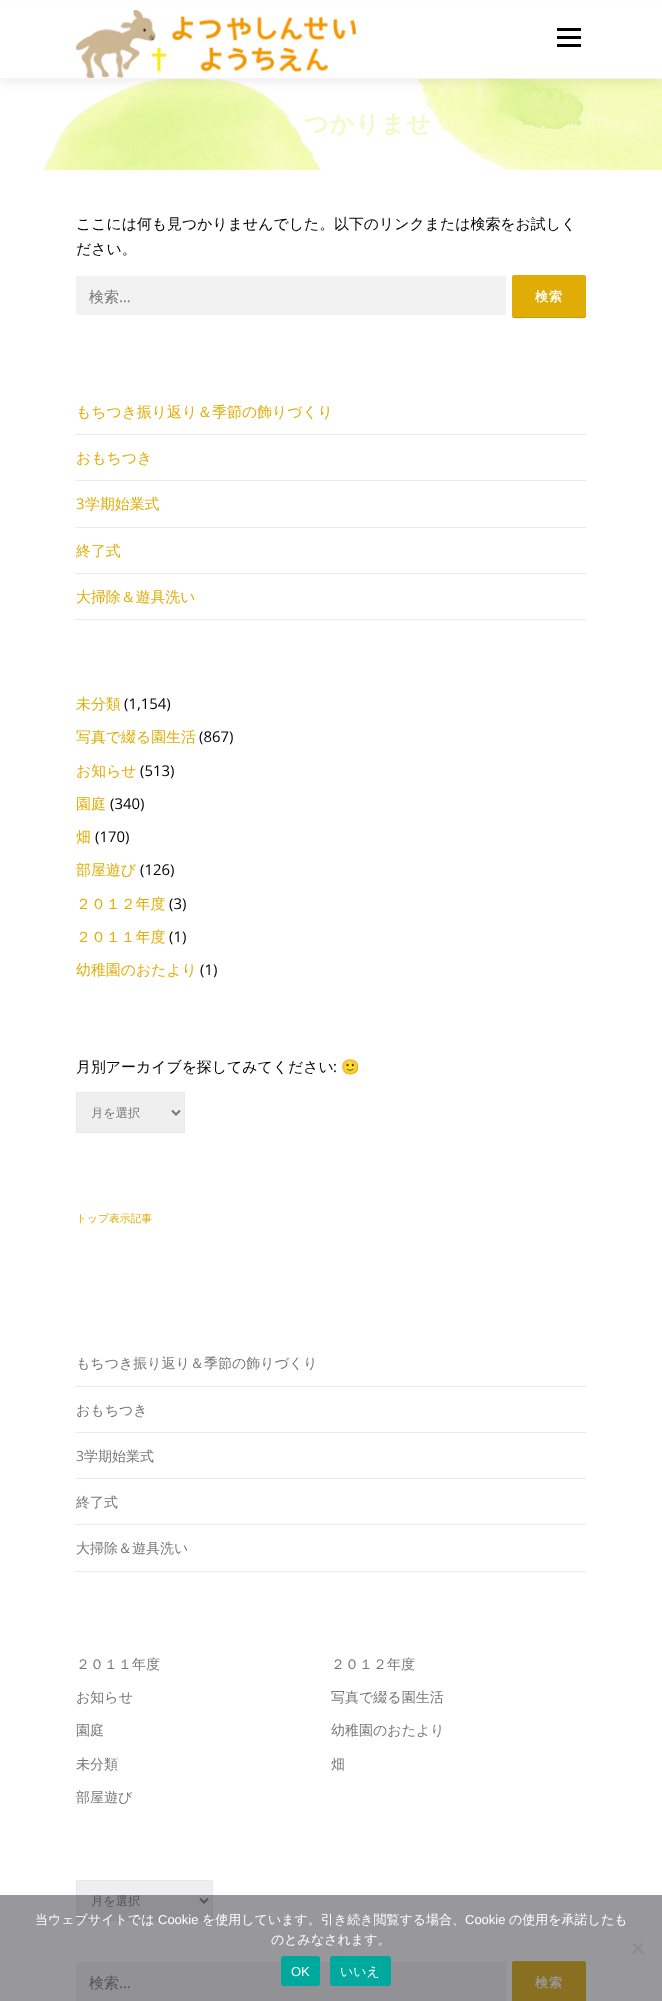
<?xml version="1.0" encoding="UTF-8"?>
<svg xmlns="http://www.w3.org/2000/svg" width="662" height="2001">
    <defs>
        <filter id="blur1" x="-50%" y="-200%" width="200%" height="500%"><feGaussianBlur stdDeviation="5"/></filter>
    </defs>
    <rect width="100%" height="100%" fill="#FFFFFF"/>
    <image x="43" y="79" width="619" height="91" href="img_02.png"/>
    <rect x="0" y="5" width="662" height="78" fill="#323232" fill-opacity="0.06" filter="url(#blur1)"/>
    <rect x="0" y="1" width="662" height="77" fill="#FFFFFF"/>
    <image x="76" y="10" width="280" height="68" href="img_01.png"/>
    <rect x="557" y="36" width="24" height="3" fill="#000000"/>
    <rect x="557" y="28" width="24" height="3" fill="#000000"/>
    <rect x="557" y="44" width="24" height="3" fill="#000000"/>
    <text x="304" y="132" font-family="WenQuanYi Zen Hei" font-size="24" font-weight="700" letter-spacing="1" fill="#F2FBC8">つかりませ</text>
    <text font-family="WenQuanYi Zen Hei" font-size="14.9" font-weight="500" fill="#000000">
        <tspan x="76" y="229">ここには何も見つかりませんでした。以下のリンクまたは検索をお試しく</tspan>
        <tspan x="76" y="254">ださい。</tspan>
    </text>
    <rect x="76" y="276" width="430" height="39" fill="#F2F2F2"/>
    <text x="89" y="302" font-family="WenQuanYi Zen Hei" font-size="15" font-weight="500" fill="#777777">検索</text>
    <text x="119" y="302" font-family="Open Sans" font-size="15" fill="#777777">…</text>
    <rect x="512" y="275" width="74" height="43" rx="2" fill="#E0AD06"/>
    <path d="M 512 315 C 512 321 522 318 526 318 H 572 C 576 318 586 321 586 315 L 585 316 L 584 317 H 514 C 513 317 512 316 512 315 Z" fill="#000000" fill-opacity="0.1"/>
    <text x="535" y="301" font-family="WenQuanYi Zen Hei" font-size="13" font-weight="700" letter-spacing="1" fill="#FFFFFF">検索</text>
    <rect x="76" y="434" width="510" height="1" fill="#E9E9E9"/>
    <text x="76" y="417" font-family="WenQuanYi Zen Hei" font-size="14.9" font-weight="500" fill="#E0AD06">もちつき振り返り＆季節の飾りづくり</text>
    <rect x="76" y="480" width="510" height="1" fill="#E9E9E9"/>
    <text x="76" y="463" font-family="WenQuanYi Zen Hei" font-size="14.9" font-weight="500" fill="#E0AD06">おもちつき</text>
    <rect x="76" y="527" width="510" height="1" fill="#E9E9E9"/>
    <text x="76" y="509" font-family="Open Sans" font-size="14.9" fill="#E0AD06">3</text>
    <text x="85" y="509" font-family="WenQuanYi Zen Hei" font-size="14.9" font-weight="500" fill="#E0AD06">学期始業式</text>
    <rect x="76" y="573" width="510" height="1" fill="#E9E9E9"/>
    <text x="76" y="556" font-family="WenQuanYi Zen Hei" font-size="14.9" font-weight="500" fill="#E0AD06">終了式</text>
    <rect x="76" y="619" width="510" height="1" fill="#E9E9E9"/>
    <text x="76" y="602" font-family="WenQuanYi Zen Hei" font-size="14.9" font-weight="500" fill="#E0AD06">大掃除＆遊具洗い</text>
    <text x="76" y="709" font-family="WenQuanYi Zen Hei" font-size="14.9" font-weight="500" fill="#E0AD06">未分類</text>
    <text x="124" y="709" font-family="Open Sans" font-size="14.9" fill="#000000">(1,154)</text>
    <text x="76" y="742" font-family="WenQuanYi Zen Hei" font-size="14.9" font-weight="500" fill="#E0AD06">写真で綴る園生活</text>
    <text x="199" y="742" font-family="Open Sans" font-size="14.9" fill="#000000">(867)</text>
    <text x="76" y="776" font-family="WenQuanYi Zen Hei" font-size="14.9" font-weight="500" fill="#E0AD06">お知らせ</text>
    <text x="140" y="776" font-family="Open Sans" font-size="14.9" fill="#000000">(513)</text>
    <text x="76" y="809" font-family="WenQuanYi Zen Hei" font-size="14.9" font-weight="500" fill="#E0AD06">園庭</text>
    <text x="110" y="809" font-family="Open Sans" font-size="14.9" fill="#000000">(340)</text>
    <text x="76" y="842" font-family="WenQuanYi Zen Hei" font-size="14.9" font-weight="500" fill="#E0AD06">畑</text>
    <text x="95" y="842" font-family="Open Sans" font-size="14.9" fill="#000000">(170)</text>
    <text x="76" y="875" font-family="WenQuanYi Zen Hei" font-size="14.9" font-weight="500" fill="#E0AD06">部屋遊び</text>
    <text x="140" y="875" font-family="Open Sans" font-size="14.9" fill="#000000">(126)</text>
    <text x="76" y="909" font-family="WenQuanYi Zen Hei" font-size="14.9" font-weight="500" fill="#E0AD06">２０１２年度</text>
    <text x="169" y="909" font-family="Open Sans" font-size="14.9" fill="#000000">(3)</text>
    <text x="76" y="942" font-family="WenQuanYi Zen Hei" font-size="14.9" font-weight="500" fill="#E0AD06">２０１１年度</text>
    <text x="169" y="942" font-family="Open Sans" font-size="14.9" fill="#000000">(1)</text>
    <text x="76" y="975" font-family="WenQuanYi Zen Hei" font-size="14.9" font-weight="500" fill="#E0AD06">幼稚園のおたより</text>
    <text x="200" y="975" font-family="Open Sans" font-size="14.9" fill="#000000">(1)</text>
    <text x="76" y="1072" font-family="WenQuanYi Zen Hei" font-size="14.9" font-weight="500" fill="#000000">月別アーカイブを探してみてください</text>
    <text x="333" y="1072" font-family="Open Sans" font-size="14.9" fill="#000000">:</text>
    <text x="341" y="1072" font-family="Noto Color Emoji" font-size="14.9" fill="#000000">🙂</text>
    <rect x="76.5" y="1092.5" width="108" height="40" fill="#EFEFEF" stroke="#E9E9E9"/>
    <path d="M 172 1110.5 L 176 1114.5 L 180 1110.5" fill="none" stroke="#777777" stroke-width="2"/>
    <text x="91" y="1117" font-family="WenQuanYi Zen Hei" font-size="12.25" font-weight="500" fill="#777777">月を選択</text>
    <text x="76" y="1222" font-family="WenQuanYi Zen Hei" font-size="10.75" font-weight="500" fill="#E0AD06">トップ表示記事</text>
    <rect x="76" y="1386" width="510" height="1" fill="#E9E9E9"/>
    <text x="76" y="1368" font-family="WenQuanYi Zen Hei" font-size="14" font-weight="500" fill="#777777">もちつき振り返り＆季節の飾りづくり</text>
    <rect x="76" y="1432" width="510" height="1" fill="#E9E9E9"/>
    <text x="76" y="1415" font-family="WenQuanYi Zen Hei" font-size="14" font-weight="500" fill="#777777">おもちつき</text>
    <rect x="76" y="1478" width="510" height="1" fill="#E9E9E9"/>
    <text x="76" y="1461" font-family="Open Sans" font-size="14" fill="#777777">3</text>
    <text x="84" y="1461" font-family="WenQuanYi Zen Hei" font-size="14" font-weight="500" fill="#777777">学期始業式</text>
    <rect x="76" y="1524" width="510" height="1" fill="#E9E9E9"/>
    <text x="76" y="1507" font-family="WenQuanYi Zen Hei" font-size="14" font-weight="500" fill="#777777">終了式</text>
    <rect x="76" y="1571" width="510" height="1" fill="#E9E9E9"/>
    <text x="76" y="1553" font-family="WenQuanYi Zen Hei" font-size="14" font-weight="500" fill="#777777">大掃除＆遊具洗い</text>
    <text x="76" y="1669" font-family="WenQuanYi Zen Hei" font-size="14" font-weight="500" fill="#777777">２０１１年度</text>
    <text x="331" y="1669" font-family="WenQuanYi Zen Hei" font-size="14" font-weight="500" fill="#777777">２０１２年度</text>
    <text x="76" y="1702" font-family="WenQuanYi Zen Hei" font-size="14" font-weight="500" fill="#777777">お知らせ</text>
    <text x="331" y="1702" font-family="WenQuanYi Zen Hei" font-size="14" font-weight="500" fill="#777777">写真で綴る園生活</text>
    <text x="76" y="1735" font-family="WenQuanYi Zen Hei" font-size="14" font-weight="500" fill="#777777">園庭</text>
    <text x="331" y="1735" font-family="WenQuanYi Zen Hei" font-size="14" font-weight="500" fill="#777777">幼稚園のおたより</text>
    <text x="76" y="1769" font-family="WenQuanYi Zen Hei" font-size="14" font-weight="500" fill="#777777">未分類</text>
    <text x="331" y="1769" font-family="WenQuanYi Zen Hei" font-size="14" font-weight="500" fill="#777777">畑</text>
    <text x="76" y="1802" font-family="WenQuanYi Zen Hei" font-size="14" font-weight="500" fill="#777777">部屋遊び</text>
    <rect x="76.5" y="1880.5" width="136" height="40" fill="#EFEFEF" stroke="#E9E9E9"/>
    <path d="M 200 1898.5 L 204 1902.5 L 208 1898.5" fill="none" stroke="#777777" stroke-width="2"/>
    <text x="91" y="1905" font-family="WenQuanYi Zen Hei" font-size="12.25" font-weight="500" fill="#777777">月を選択</text>
    <rect x="76" y="1962" width="430" height="39" fill="#F2F2F2"/>
    <text x="89" y="1988" font-family="WenQuanYi Zen Hei" font-size="15" font-weight="500" fill="#777777">検索</text>
    <text x="119" y="1988" font-family="Open Sans" font-size="15" fill="#777777">…</text>
    <rect x="512" y="1961" width="74" height="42" rx="2" fill="#E0AD06"/>
    <text x="535" y="1987" font-family="WenQuanYi Zen Hei" font-size="13" font-weight="700" letter-spacing="1" fill="#FFFFFF">検索</text>
    <rect x="0" y="1895" width="662" height="106" fill="#32323A" fill-opacity="0.5"/>
    <text x="35" y="1924" font-family="WenQuanYi Zen Hei" font-size="13" font-weight="500" fill="#FFFFFF">当ウェブサイトでは</text>
    <text x="158" y="1924" font-family="Liberation Sans" font-size="13" fill="#FFFFFF">Cookie</text>
    <text x="202" y="1924" font-family="WenQuanYi Zen Hei" font-size="13" font-weight="500" fill="#FFFFFF">を使用しています。引き続き閲覧する場合、</text>
    <text x="465" y="1924" font-family="Liberation Sans" font-size="13" fill="#FFFFFF">Cookie</text>
    <text x="509" y="1924" font-family="WenQuanYi Zen Hei" font-size="13" font-weight="500" fill="#FFFFFF">の使用を承諾したも</text>
    <text x="271" y="1944" font-family="WenQuanYi Zen Hei" font-size="13" font-weight="500" fill="#FFFFFF">のとみなされます。</text>
    <path d="M 642.5 1942.5 L 644 1944 L 633.5 1954.5 L 632 1953 Z" fill="#8C8C8E"/>
    <path d="M 632 1944 L 633.5 1942.5 L 644 1953 L 642.5 1954.5 Z" fill="#8C8C8E"/>
    <rect x="281" y="1956" width="39" height="30" rx="3" fill="#00A99D"/>
    <text x="291" y="1976" font-family="Liberation Sans" font-size="13" fill="#FFFFFF">OK</text>
    <rect x="330" y="1956" width="61" height="30" rx="3" fill="#00A99D"/>
    <text x="340" y="1976" font-family="WenQuanYi Zen Hei" font-size="13" font-weight="500" fill="#FFFFFF">いいえ</text>
</svg>
